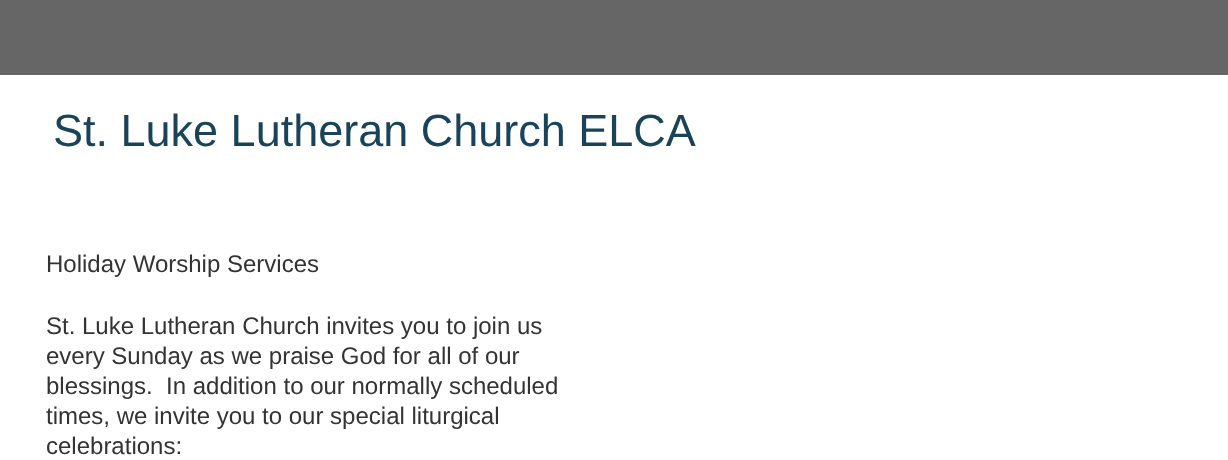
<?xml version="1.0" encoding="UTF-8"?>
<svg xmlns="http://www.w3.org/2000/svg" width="1228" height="460">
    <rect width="100%" height="100%" fill="#FFFFFF"/>
    <rect x="0" y="0" width="1228" height="75" fill="#666666"/>
    <text x="53" y="146" font-family="Liberation Sans" font-size="45" fill="#194359">St. Luke Lutheran Church ELCA</text>
    <text x="46" y="272" font-family="Liberation Sans" font-size="24" fill="#333333">Holiday Worship Services</text>
    <text font-family="Liberation Sans" font-size="24" fill="#333333" xml:space="preserve"><tspan x="46" y="334">St. Luke Lutheran Church invites you to join us</tspan><tspan x="46" y="364">every Sunday as we praise God for all of our</tspan><tspan x="46" y="394">blessings.  In addition to our normally scheduled</tspan><tspan x="46" y="424">times, we invite you to our special liturgical</tspan><tspan x="46" y="454">celebrations:</tspan></text>
</svg>
